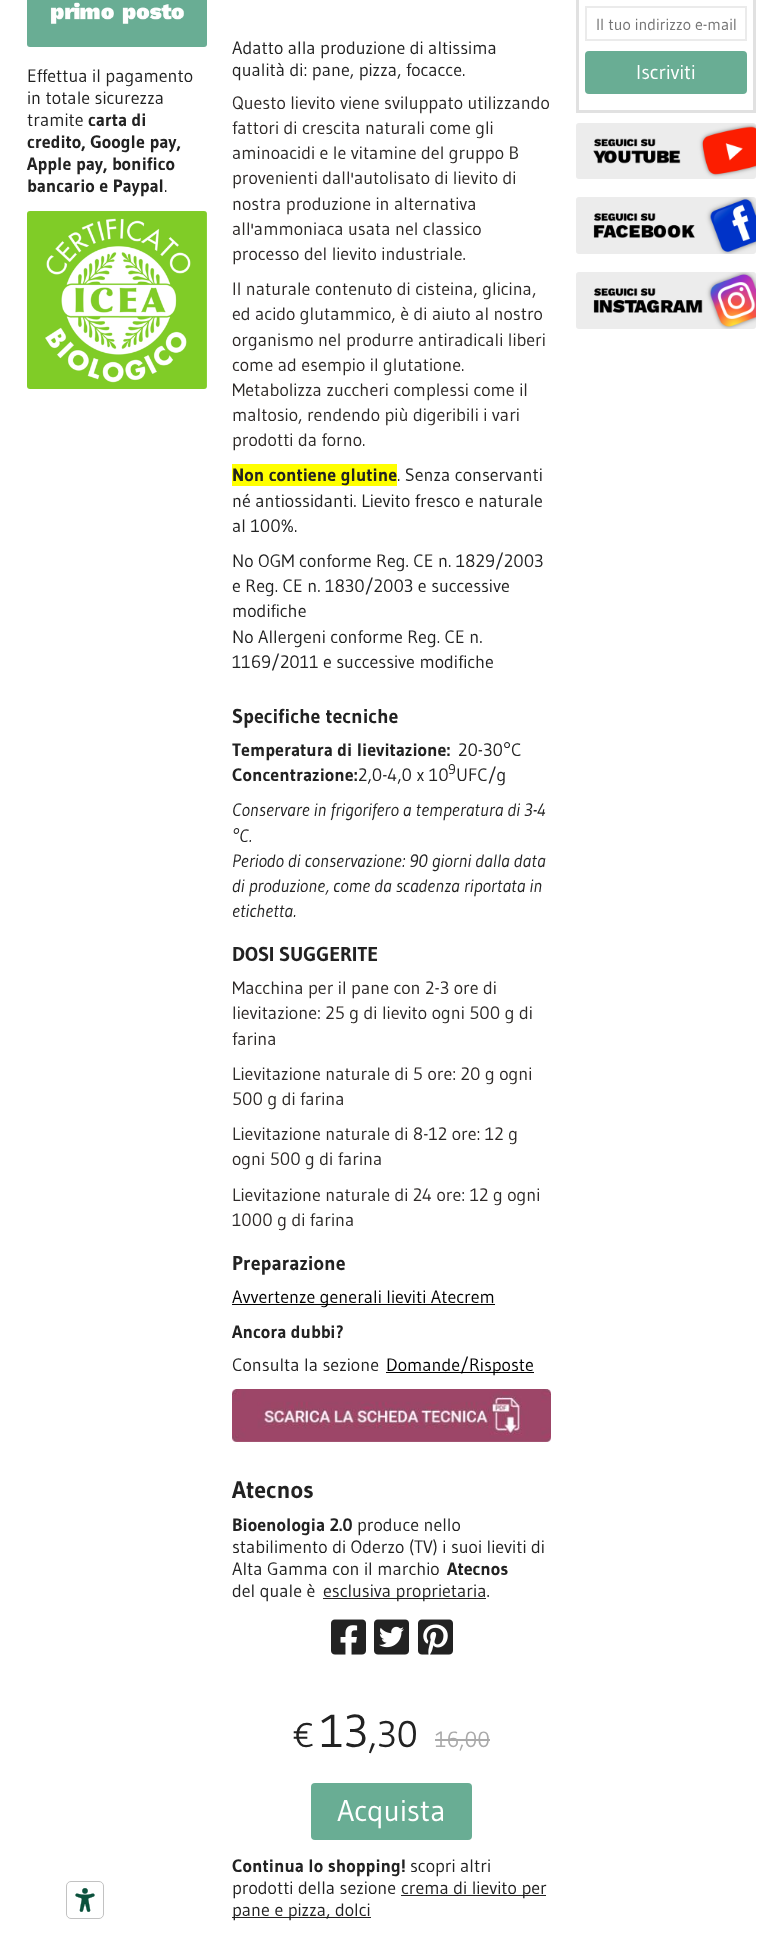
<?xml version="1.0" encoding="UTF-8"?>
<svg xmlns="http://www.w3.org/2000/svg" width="783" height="1935">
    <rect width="100%" height="100%" fill="#FFFFFF"/>
    <image x="27" y="0" width="180" height="47" href="img_01.png"/>
    <text font-family="Gudea" font-size="18" fill="#222222">
        <tspan x="27" y="82">Effettua il pagamento</tspan>
        <tspan x="27" y="104">in totale sicurezza</tspan>
        <tspan x="27" y="126">tramite</tspan>
    </text>
    <text x="88" y="126" font-family="Gudea" font-size="18" font-weight="700" fill="#222222">carta di</text>
    <text font-family="Gudea" font-size="18" font-weight="700" fill="#222222">
        <tspan x="27" y="148">credito, Google pay,</tspan>
        <tspan x="27" y="170">Apple pay, bonifico</tspan>
        <tspan x="27" y="192">bancario e Paypal</tspan>
    </text>
    <text x="164" y="192" font-family="Gudea" font-size="18" fill="#222222">.</text>
    <image x="27" y="211" width="180" height="178" href="img_02.png"/>
    <text font-family="Gudea" font-size="18" fill="#222222">
        <tspan x="232" y="54">Adatto alla produzione di altissima</tspan>
        <tspan x="232" y="76">qualità di: pane, pizza, focacce.</tspan>
    </text>
    <text font-family="Gudea" font-size="18" fill="#2D2927">
        <tspan x="232" y="109">Questo lievito viene sviluppato utilizzando</tspan>
        <tspan x="232" y="134">fattori di crescita naturali come gli</tspan>
        <tspan x="232" y="159">aminoacidi e le vitamine del gruppo B</tspan>
        <tspan x="232" y="184">provenienti dall'autolisato di lievito di</tspan>
        <tspan x="232" y="210">nostra produzione in alternativa</tspan>
        <tspan x="232" y="235">all'ammoniaca usata nel classico</tspan>
        <tspan x="232" y="260">processo del lievito industriale.</tspan>
        <tspan x="232" y="295">Il naturale contenuto di cisteina, glicina,</tspan>
        <tspan x="232" y="320">ed acido glutammico, è di aiuto al nostro</tspan>
        <tspan x="232" y="346">organismo nel produrre antiradicali liberi</tspan>
        <tspan x="232" y="371">come ad esempio il glutatione.</tspan>
        <tspan x="232" y="396">Metabolizza zuccheri complessi come il</tspan>
        <tspan x="232" y="421">maltosio, rendendo più digeribili i vari</tspan>
        <tspan x="232" y="446">prodotti da forno.</tspan>
    </text>
    <rect x="232" y="464" width="165" height="22" fill="#FFFF00"/>
    <text x="232" y="481" font-family="Gudea" font-size="18" font-weight="700" fill="#222222">Non contiene glutine</text>
    <text x="397" y="481" font-family="Gudea" font-size="18" fill="#222222">. Senza conservanti</text>
    <text font-family="Gudea" font-size="18" fill="#222222">
        <tspan x="232" y="507">né antiossidanti. Lievito fresco e naturale</tspan>
        <tspan x="232" y="532">al 100%.</tspan>
        <tspan x="232" y="567">No OGM conforme Reg. CE n. 1829/2003</tspan>
        <tspan x="232" y="592">e Reg. CE n. 1830/2003 e successive</tspan>
        <tspan x="232" y="617">modifiche</tspan>
        <tspan x="232" y="643">No Allergeni conforme Reg. CE n.</tspan>
        <tspan x="232" y="668">1169/2011 e successive modifiche</tspan>
    </text>
    <text x="232" y="723" font-family="Gudea" font-size="20" font-weight="700" fill="#222222">Specifiche tecniche</text>
    <text x="232" y="756" font-family="Gudea" font-size="18" font-weight="700" fill="#222222">Temperatura di lievitazione:</text>
    <text x="458" y="756" font-family="Gudea" font-size="18" fill="#222222">20-30°C</text>
    <text x="232" y="781" font-family="Gudea" font-size="18" font-weight="700" fill="#222222">Concentrazione:</text>
    <text x="358" y="781" font-family="Gudea" font-size="18" fill="#222222">2,0-4,0 x 10</text>
    <text x="448" y="774" font-family="Gudea" font-size="14" fill="#222222">9</text>
    <text x="456" y="781" font-family="Gudea" font-size="18" fill="#222222">UFC/g</text>
    <text font-family="Gudea" font-size="18" font-style="italic" fill="#222222">
        <tspan x="232" y="816">Conservare in frigorifero a temperatura di 3-4</tspan>
        <tspan x="232" y="842">°C.</tspan>
        <tspan x="232" y="867">Periodo di conservazione: 90 giorni dalla data</tspan>
        <tspan x="232" y="892">di produzione, come da scadenza riportata in</tspan>
        <tspan x="232" y="917">etichetta.</tspan>
    </text>
    <text x="232" y="961" font-family="Gudea" font-size="20" font-weight="700" fill="#222222">DOSI SUGGERITE</text>
    <text font-family="Gudea" font-size="18" fill="#2D2927">
        <tspan x="232" y="994">Macchina per il pane con 2-3 ore di</tspan>
        <tspan x="232" y="1019">lievitazione: 25 g di lievito ogni 500 g di</tspan>
        <tspan x="232" y="1045">farina</tspan>
        <tspan x="232" y="1080">Lievitazione naturale di 5 ore: 20 g ogni</tspan>
        <tspan x="232" y="1105">500 g di farina</tspan>
        <tspan x="232" y="1140">Lievitazione naturale di 8-12 ore: 12 g</tspan>
        <tspan x="232" y="1165">ogni 500 g di farina</tspan>
    </text>
    <text font-family="Gudea" font-size="18" fill="#2D2927">
        <tspan x="232" y="1201">Lievitazione naturale di 24 ore: 12 g ogni</tspan>
        <tspan x="232" y="1226">1000 g di farina</tspan>
    </text>
    <text x="232" y="1270" font-family="Gudea" font-size="20" font-weight="700" fill="#222222">Preparazione</text>
    <rect x="232" y="1304" width="263" height="1" fill="#000000"/>
    <text x="232" y="1303" font-family="Gudea" font-size="18" fill="#000000">Avvertenze generali lieviti Atecrem</text>
    <text x="232" y="1338" font-family="Gudea" font-size="18" font-weight="700" fill="#222222">Ancora dubbi?</text>
    <text x="232" y="1371" font-family="Gudea" font-size="18" fill="#222222">Consulta la sezione</text>
    <rect x="386" y="1372" width="148" height="1" fill="#000000"/>
    <text x="386" y="1371" font-family="Gudea" font-size="18" fill="#000000">Domande/Risposte</text>
    <image x="232" y="1389" width="319" height="53" href="img_03.png"/>
    <text x="232" y="1498" font-family="Gudea" font-size="24" font-weight="700" fill="#222222">Atecnos</text>
    <text x="232" y="1531" font-family="Gudea" font-size="18" font-weight="700" fill="#222222">Bioenologia 2.0</text>
    <text x="357" y="1531" font-family="Gudea" font-size="18" fill="#222222">produce nello</text>
    <text font-family="Gudea" font-size="18" fill="#222222">
        <tspan x="232" y="1553">stabilimento di Oderzo (TV) i suoi lieviti di</tspan>
        <tspan x="232" y="1575">Alta Gamma con il marchio</tspan>
    </text>
    <text x="447" y="1575" font-family="Gudea" font-size="18" font-weight="700" fill="#222222">Atecnos</text>
    <text x="232" y="1597" font-family="Gudea" font-size="18" fill="#222222">del quale è</text>
    <rect x="323" y="1598" width="163" height="1" fill="#222222"/>
    <text x="323" y="1597" font-family="Gudea" font-size="18" fill="#222222">esclusiva proprietaria.</text>
    <image x="331" y="1619" width="35" height="36" href="img_04.png"/>
    <image x="374" y="1619" width="35" height="36" href="img_05.png"/>
    <image x="418" y="1619" width="35" height="36" href="img_06.png"/>
    <text x="293" y="1747" font-family="Gudea" font-size="34" fill="#222222">€</text>
    <text x="320" y="1747" font-family="Gudea" font-size="46" fill="#222222">13</text>
    <text x="368" y="1747" font-family="Gudea" font-size="37" fill="#222222">,30</text>
    <text x="435" y="1747" font-family="Gudea" font-size="22" fill="#AAAAAA">16,00</text>
    <rect x="435" y="1739" width="55" height="2" fill="#AAAAAA"/>
    <rect x="311" y="1783" width="161" height="57" rx="4" fill="#69AD94"/>
    <text x="337" y="1821" font-family="Gudea" font-size="30" fill="#FFFFFF">Acquista</text>
    <text x="232" y="1872" font-family="Gudea" font-size="18" font-weight="700" fill="#222222">Continua lo shopping!</text>
    <text x="410" y="1872" font-family="Gudea" font-size="18" fill="#222222">scopri altri</text>
    <text x="232" y="1894" font-family="Gudea" font-size="18" fill="#222222">prodotti della sezione</text>
    <rect x="401" y="1895" width="145" height="1" fill="#222222"/>
    <text x="401" y="1894" font-family="Gudea" font-size="18" fill="#222222">crema di lievito per</text>
    <rect x="232" y="1917" width="139" height="1" fill="#222222"/>
    <text x="232" y="1916" font-family="Gudea" font-size="18" fill="#222222">pane e pizza, dolci</text>
    <rect x="577.5" y="-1.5" width="177" height="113" fill="none" stroke="#E1E1E1" stroke-width="3"/>
    <rect x="586" y="7" width="160" height="33" fill="none" stroke="#EBEBEB" stroke-width="2"/>
    <text x="596" y="30" font-family="Gudea" font-size="16" fill="#757575">Il tuo indirizzo e-mail</text>
    <rect x="585" y="51" width="162" height="43" rx="4" fill="#69AD94"/>
    <text x="636" y="79" font-family="Gudea" font-size="20" fill="#FFFFFF">Iscriviti</text>
    <image x="576" y="123" width="180" height="56" href="img_07.png"/>
    <image x="576" y="197" width="180" height="57" href="img_08.png"/>
    <image x="576" y="272" width="180" height="57" href="img_09.png"/>
    <image x="75" y="1888" width="20" height="24" href="img_10.png"/>
    <rect x="66.5" y="1881.5" width="37" height="37" rx="4.5" fill="none" stroke="#C2C2C2"/>
</svg>
